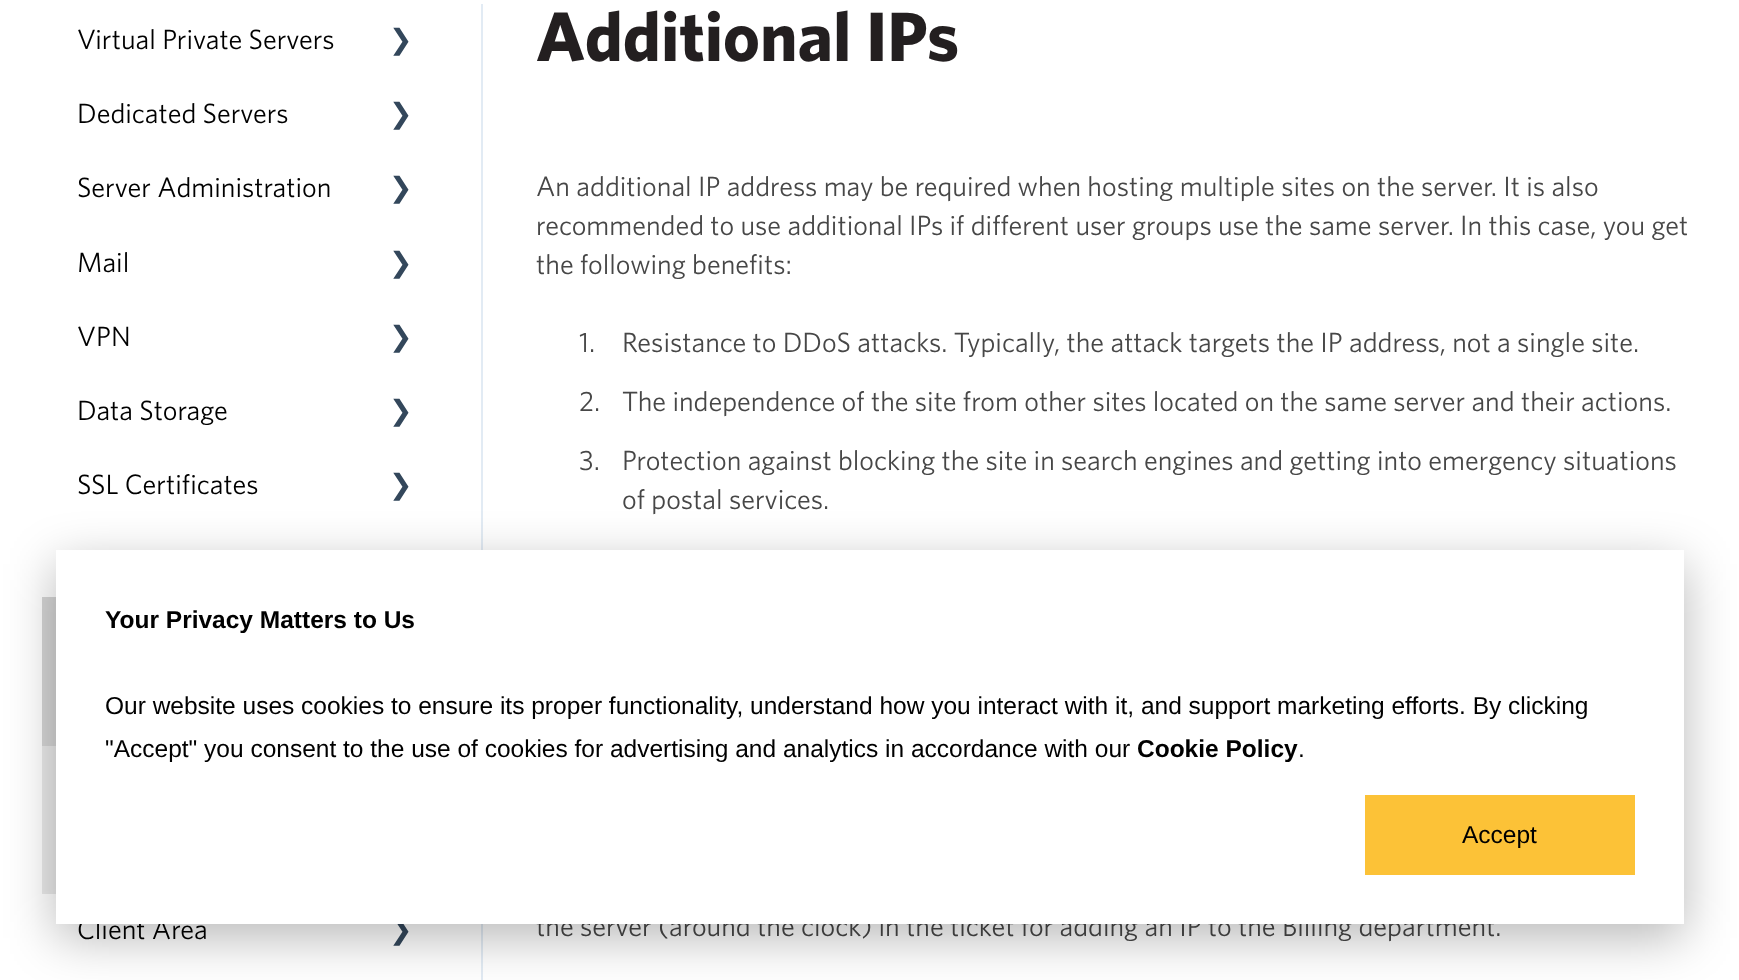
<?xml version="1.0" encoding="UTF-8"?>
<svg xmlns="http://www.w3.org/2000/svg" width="1739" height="980">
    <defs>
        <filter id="blur1" x="-50%" y="-200%" width="200%" height="500%"><feGaussianBlur stdDeviation="24.5"/></filter>
    </defs>
    <rect width="100%" height="100%" fill="#FFFFFF"/>
    <rect x="481" y="4" width="2" height="976" fill="#E2EBF4"/>
    <text x="77" y="49" font-family="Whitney" font-size="28" fill="#000000">Virtual Private Servers</text>
    <text x="389" y="49" font-family="DejaVu Sans" font-size="28" fill="#33475B">❯</text>
    <text x="77" y="123" font-family="Whitney" font-size="28" fill="#000000">Dedicated Servers</text>
    <text x="389" y="123" font-family="DejaVu Sans" font-size="28" fill="#33475B">❯</text>
    <text x="77" y="197" font-family="Whitney" font-size="28" fill="#000000">Server Administration</text>
    <text x="389" y="197" font-family="DejaVu Sans" font-size="28" fill="#33475B">❯</text>
    <text x="77" y="272" font-family="Whitney" font-size="28" fill="#000000">Mail</text>
    <text x="389" y="272" font-family="DejaVu Sans" font-size="28" fill="#33475B">❯</text>
    <text x="77" y="346" font-family="Whitney" font-size="28" fill="#000000">VPN</text>
    <text x="389" y="346" font-family="DejaVu Sans" font-size="28" fill="#33475B">❯</text>
    <text x="77" y="420" font-family="Whitney" font-size="28" fill="#000000">Data Storage</text>
    <text x="389" y="420" font-family="DejaVu Sans" font-size="28" fill="#33475B">❯</text>
    <text x="77" y="494" font-family="Whitney" font-size="28" fill="#000000">SSL Certificates</text>
    <text x="389" y="494" font-family="DejaVu Sans" font-size="28" fill="#33475B">❯</text>
    <rect x="42" y="746" width="14" height="148" fill="#E9E9E9"/>
    <rect x="42" y="597" width="14" height="149" fill="#D5D5D5"/>
    <text x="77" y="939" font-family="Whitney" font-size="28" fill="#000000">Client Area</text>
    <text x="389" y="939" font-family="DejaVu Sans" font-size="28" fill="#33475B">❯</text>
    <text x="536" y="61" font-family="Whitney" font-size="70" font-weight="700" fill="#231F20">Additional IPs</text>
    <text font-family="Whitney" font-size="28" fill="#474747">
        <tspan x="536" y="196">An additional IP address may be required when hosting multiple sites on the server. It is also</tspan>
        <tspan x="536" y="235">recommended to use additional IPs if different user groups use the same server. In this case, you get</tspan>
        <tspan x="536" y="274">the following benefits:</tspan>
    </text>
    <text x="579" y="352" font-family="Whitney" font-size="28" fill="#474747">1.</text>
    <text x="622" y="352" font-family="Whitney" font-size="28" fill="#474747">Resistance to DDoS attacks. Typically, the attack targets the IP address, not a single site.</text>
    <text x="579" y="411" font-family="Whitney" font-size="28" fill="#474747">2.</text>
    <text x="622" y="411" font-family="Whitney" font-size="28" fill="#474747">The independence of the site from other sites located on the same server and their actions.</text>
    <text x="579" y="470" font-family="Whitney" font-size="28" fill="#474747">3.</text>
    <text font-family="Whitney" font-size="28" fill="#474747">
        <tspan x="622" y="470">Protection against blocking the site in search engines and getting into emergency situations</tspan>
        <tspan x="622" y="509">of postal services.</tspan>
    </text>
    <text x="536" y="936" font-family="Whitney" font-size="28" fill="#474747">the server (around the clock) in the ticket for adding an IP to the Billing department.</text>
    <rect x="56" y="564" width="1628" height="374" fill="#000000" fill-opacity="0.28" filter="url(#blur1)"/>
    <rect x="56" y="550" width="1628" height="374" fill="#FFFFFF"/>
    <text x="105" y="628" font-family="Liberation Sans" font-size="24.5" font-weight="700" fill="#000000">Your Privacy Matters to Us</text>
    <text font-family="Liberation Sans" font-size="24.5" fill="#000000">
        <tspan x="105" y="714">Our website uses cookies to ensure its proper functionality, understand how you interact with it, and support marketing efforts. By clicking</tspan>
        <tspan x="105" y="757">"Accept" you consent to the use of cookies for advertising and analytics in accordance with our</tspan>
    </text>
    <text x="1137" y="757" font-family="Liberation Sans" font-size="24.5" font-weight="700" fill="#000000">Cookie Policy</text>
    <text x="1298" y="757" font-family="Liberation Sans" font-size="24.5" fill="#000000">.</text>
    <rect x="1365" y="795" width="270" height="80" fill="#FCC237"/>
    <text x="1462" y="843" font-family="Liberation Sans" font-size="24.5" fill="#000000">Accept</text>
</svg>
